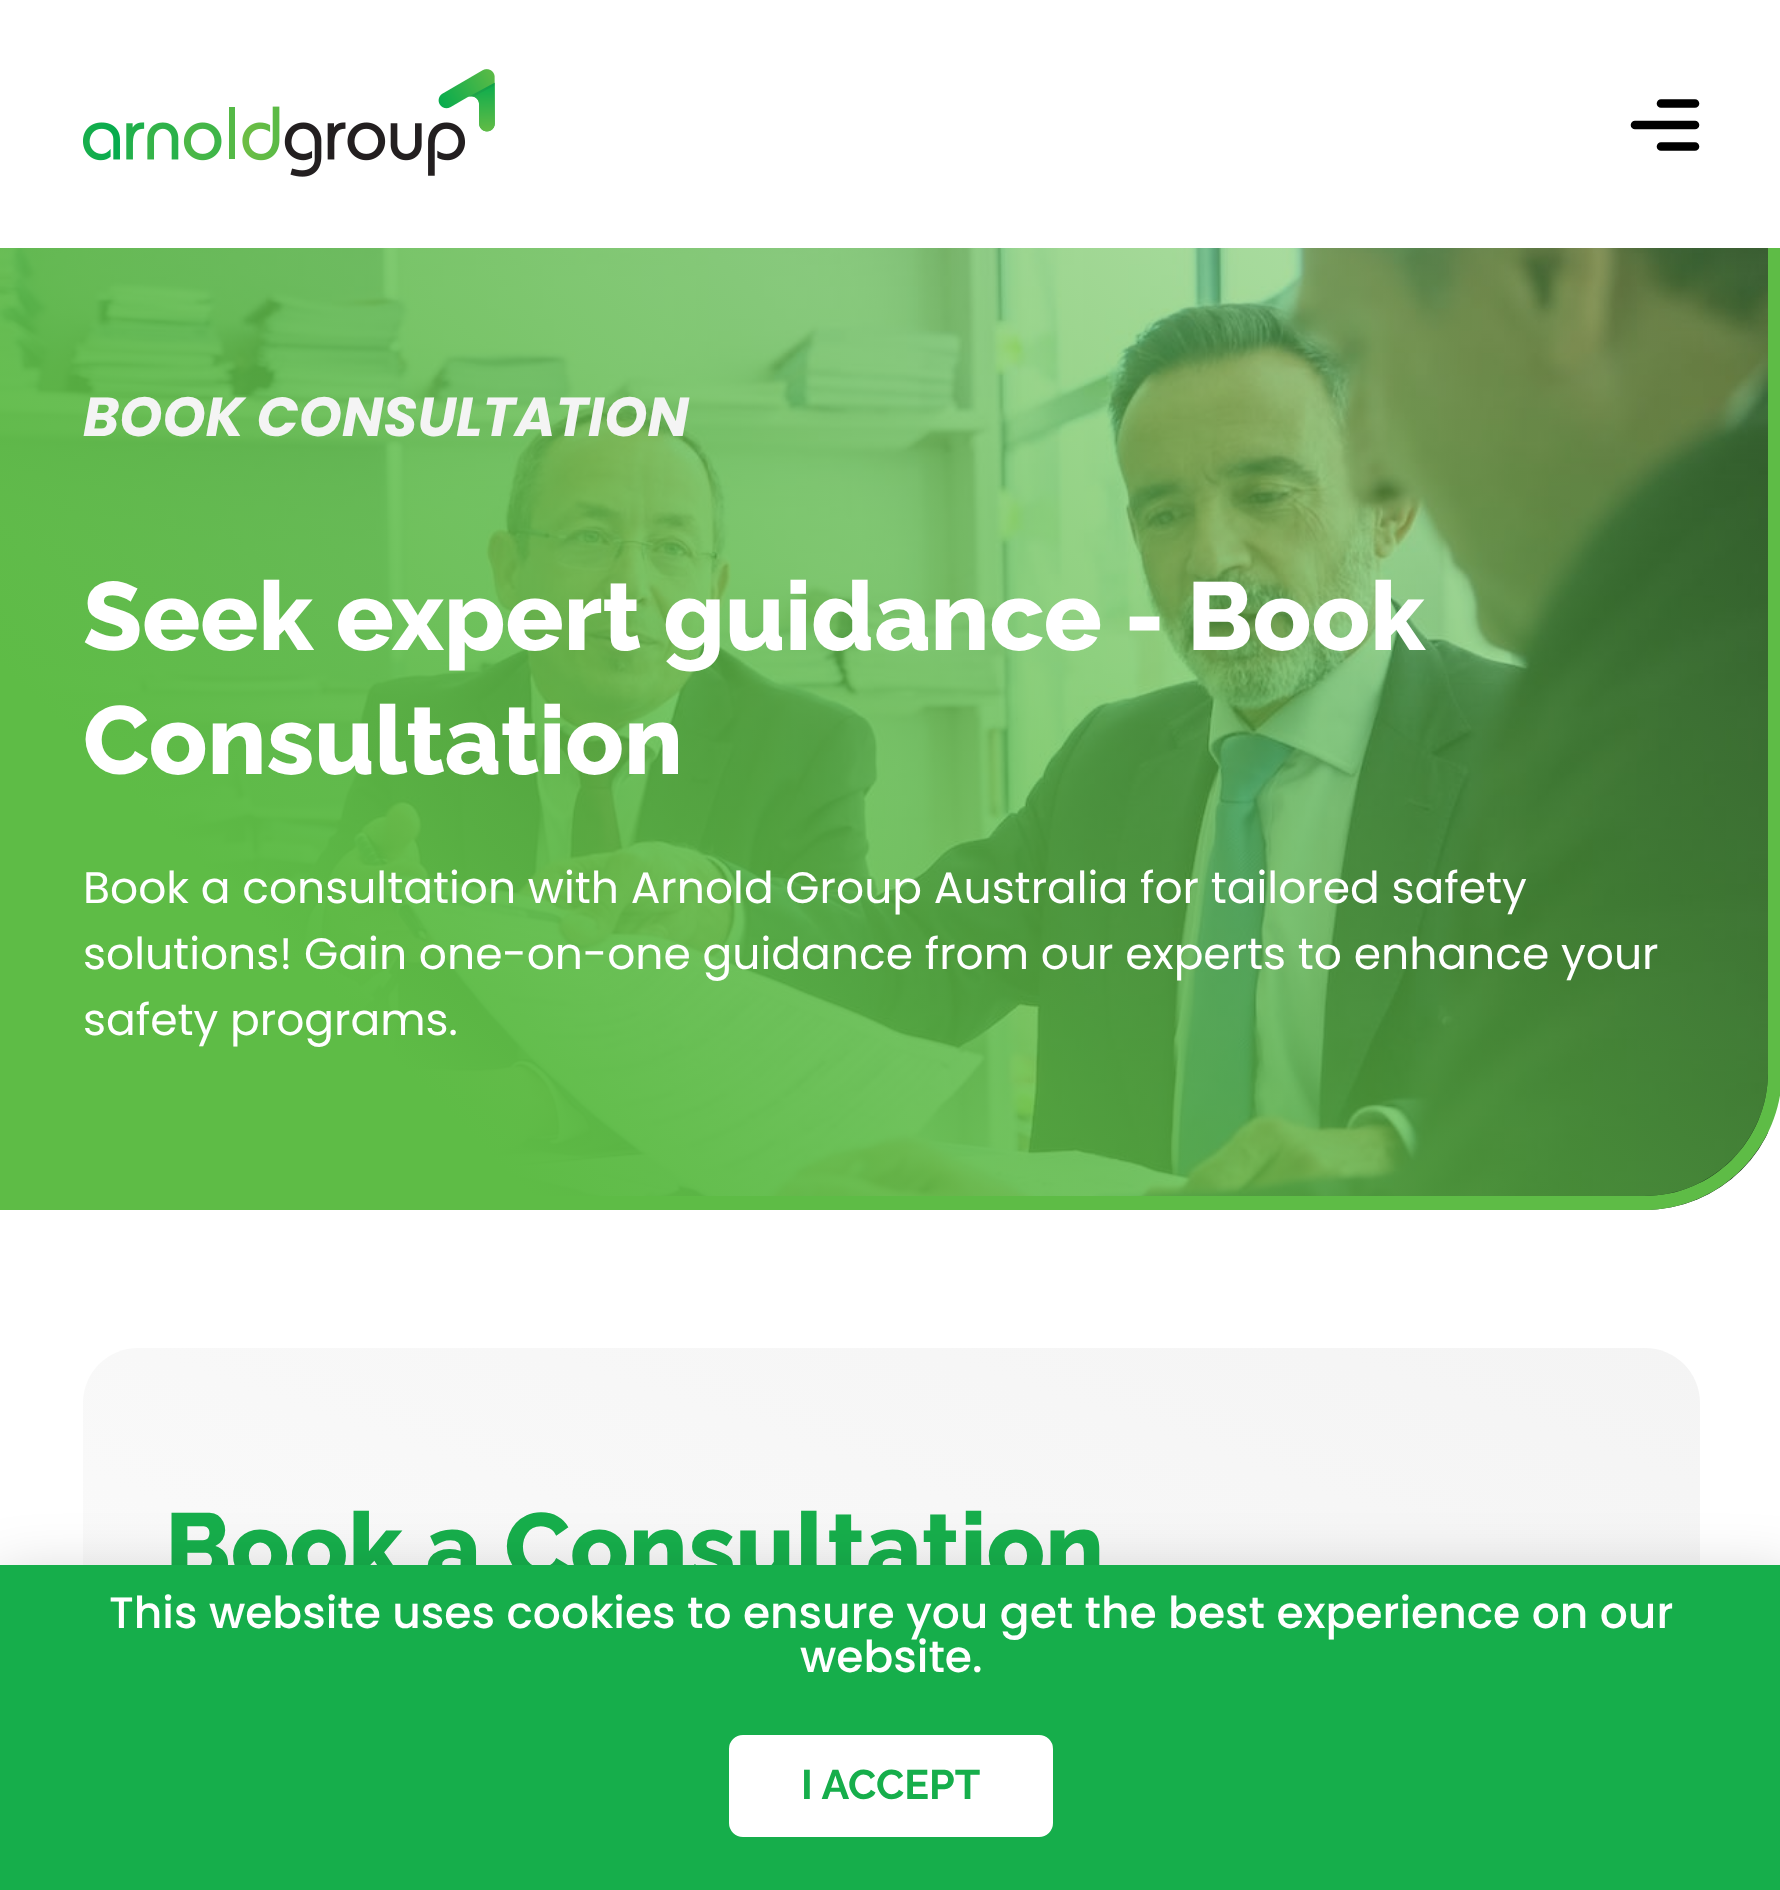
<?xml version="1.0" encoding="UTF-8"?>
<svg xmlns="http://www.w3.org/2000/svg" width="1780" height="1890">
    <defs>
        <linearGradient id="g1" gradientUnits="userSpaceOnUse" x1="205" y1="1401" x2="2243" y2="-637"><stop offset="0.13" stop-color="#5EBC46"/><stop offset="1" stop-color="#5EBC46" stop-opacity="0"/></linearGradient>
        <linearGradient id="g2" gradientUnits="userSpaceOnUse" x1="1252" y1="1185" x2="530" y2="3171"><stop offset="0" stop-color="#F4F4F4"/><stop offset="0.7" stop-color="#FFFFFF"/></linearGradient>
        <filter id="blur1" x="-50%" y="-200%" width="200%" height="500%"><feGaussianBlur stdDeviation="31.5"/></filter>
    </defs>
    <rect width="100%" height="100%" fill="#FFFFFF"/>
    <image x="83" y="69" width="412" height="108" href="img_01.png"/>
    <path d="M 1661 146.5 H 1695 M 1635 125 H 1695 M 1661 103.5 H 1695" fill="none" stroke="#000000" stroke-width="8.6" stroke-linecap="round" stroke-linejoin="round"/>
    <image x="0" y="248" width="1769" height="962" href="img_02.png"/>
    <path d="M 0 248 H 1768 V 1072 C 1768 1140.5 1712.5 1196 1644 1196 H 0 Z" fill="url(#g1)"/>
    <path d="M 0 248 H 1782 V 1072 C 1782 1148 1720 1210 1644 1210 H 0 Z M 0 248 H 1768 V 1072 C 1768 1141 1713 1196 1644 1196 H 0 Z" fill="#5EBC46" fill-rule="evenodd"/>
    <text x="83" y="436" font-family="Poppins" font-size="55" font-weight="700" font-style="italic" fill="#F4F4F4">BOOK CONSULTATION</text>
    <text font-family="Raleway" font-size="96.25" font-weight="800" fill="#FFFFFF">
        <tspan x="83" y="650">Seek expert guidance - Book</tspan>
        <tspan x="83" y="774">Consultation</tspan>
    </text>
    <text font-family="Poppins" font-size="44" fill="#FFFFFF">
        <tspan x="83" y="903">Book a consultation with Arnold Group Australia for tailored safety</tspan>
        <tspan x="83" y="969">solutions! Gain one-on-one guidance from our experts to enhance your</tspan>
        <tspan x="83" y="1035">safety programs.</tspan>
    </text>
    <rect x="83" y="1348" width="1617" height="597" rx="55" fill="url(#g2)"/>
    <text x="165" y="1581" font-family="Raleway" font-size="96.25" font-weight="800" fill="#16AE4B">Book a Consultation</text>
    <rect x="-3" y="1579" width="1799" height="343" fill="#000000" fill-opacity="0.2" filter="url(#blur1)"/>
    <rect x="0" y="1565" width="1780" height="325" fill="#16AE4B"/>
    <text x="109" y="1628" font-family="Poppins" font-size="44" font-weight="500" fill="#FFFFFF">This website uses cookies to ensure you get the best experience on our</text>
    <text x="800" y="1672" font-family="Poppins" font-size="44" font-weight="500" fill="#FFFFFF">website.</text>
    <rect x="730.5" y="1736.5" width="321" height="99" rx="12.5" fill="#FFFFFF" stroke="#FFFFFF" stroke-width="3"/>
    <text x="801" y="1799" font-family="Raleway" font-size="41.25" font-weight="700" fill="#16AE4B">I ACCEPT</text>
</svg>
